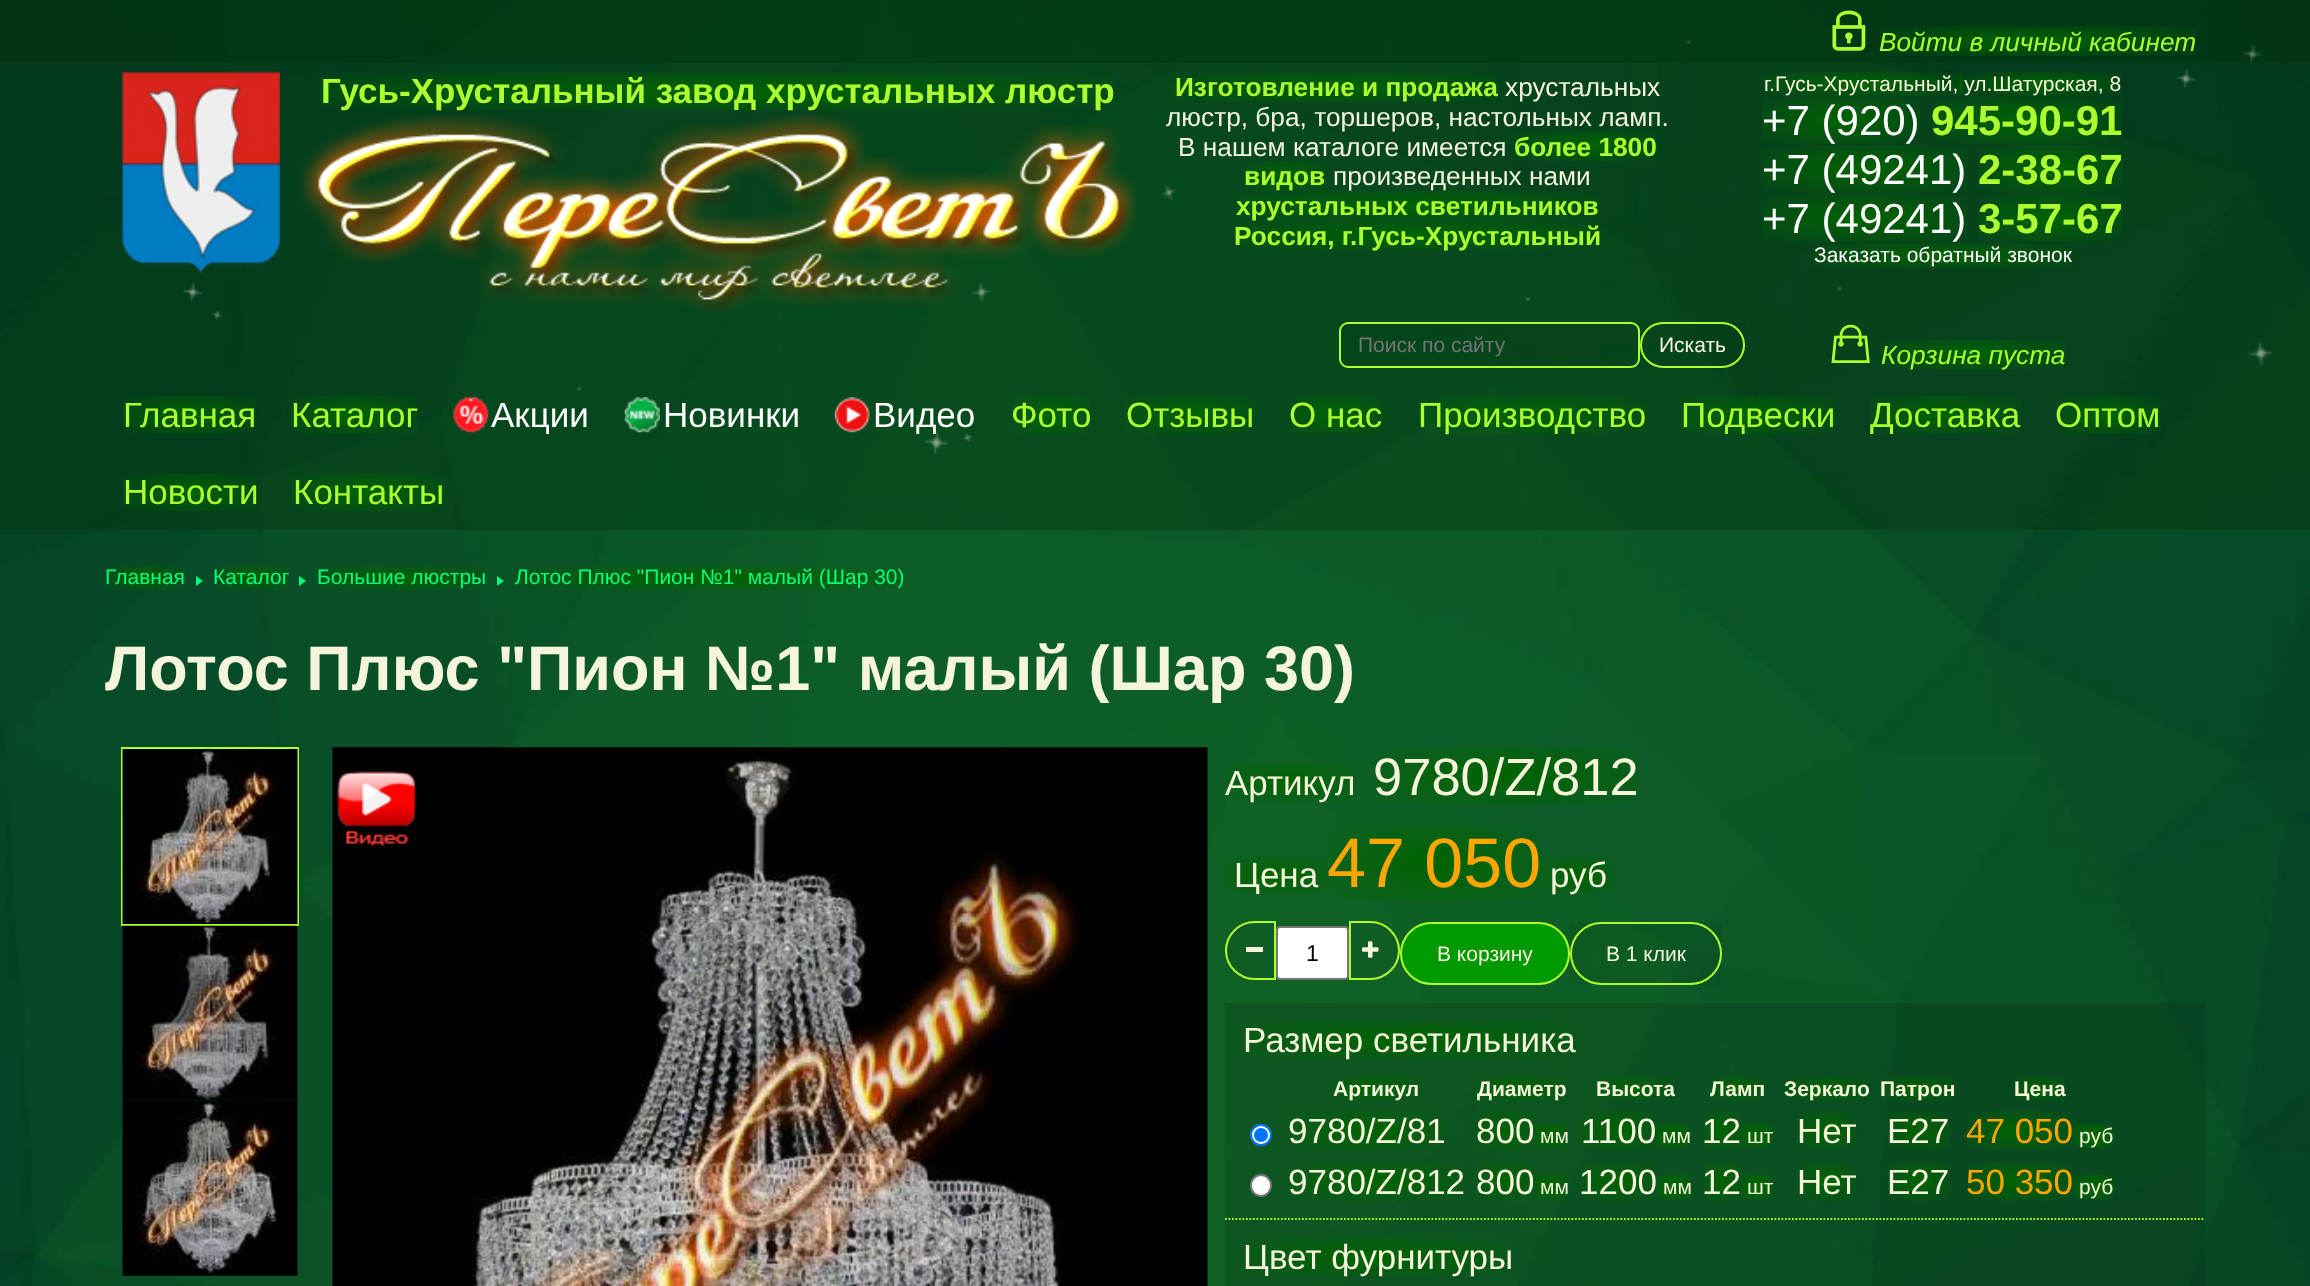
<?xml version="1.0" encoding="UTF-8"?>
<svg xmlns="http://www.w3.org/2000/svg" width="2310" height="1286">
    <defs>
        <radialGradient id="g1" gradientUnits="userSpaceOnUse" cx="0" cy="0" r="1" gradientTransform="matrix(224 0 0 21 2038 41)"><stop offset="0" stop-color="#006400"/><stop offset="1" stop-color="#033816"/></radialGradient>
        <radialGradient id="g2" gradientUnits="userSpaceOnUse" cx="0" cy="0" r="1" gradientTransform="matrix(562 0 0 27 718 91)"><stop offset="0" stop-color="#006400"/><stop offset="1" stop-color="#006400" stop-opacity="0"/></radialGradient>
        <radialGradient id="g3" gradientUnits="userSpaceOnUse" cx="0" cy="0" r="1" gradientTransform="matrix(229 0 0 21 1336 87)"><stop offset="0" stop-color="#006400"/><stop offset="1" stop-color="#006400" stop-opacity="0"/></radialGradient>
        <radialGradient id="g4" gradientUnits="userSpaceOnUse" cx="0" cy="0" r="1" gradientTransform="matrix(101 0 0 21 1586 146)"><stop offset="0" stop-color="#006400"/><stop offset="1" stop-color="#006400" stop-opacity="0"/></radialGradient>
        <radialGradient id="g5" gradientUnits="userSpaceOnUse" cx="0" cy="0" r="1" gradientTransform="matrix(57 0 0 21 1285 176)"><stop offset="0" stop-color="#006400"/><stop offset="1" stop-color="#07491E"/></radialGradient>
        <radialGradient id="g6" gradientUnits="userSpaceOnUse" cx="0" cy="0" r="1" gradientTransform="matrix(257 0 0 21 1418 206)"><stop offset="0" stop-color="#006400"/><stop offset="1" stop-color="#006400" stop-opacity="0"/></radialGradient>
        <radialGradient id="g7" gradientUnits="userSpaceOnUse" cx="0" cy="0" r="1" gradientTransform="matrix(260 0 0 21 1418 235)"><stop offset="0" stop-color="#006400"/><stop offset="1" stop-color="#006400" stop-opacity="0"/></radialGradient>
        <radialGradient id="g8" gradientUnits="userSpaceOnUse" cx="0" cy="0" r="1" gradientTransform="matrix(137 0 0 17 1861 84)"><stop offset="0" stop-color="#006400"/><stop offset="1" stop-color="#006400" stop-opacity="0"/></radialGradient>
        <radialGradient id="g9" gradientUnits="userSpaceOnUse" cx="0" cy="0" r="1" gradientTransform="matrix(3.7 0 0 17 1961 84)"><stop offset="0" stop-color="#006400"/><stop offset="1" stop-color="#006400" stop-opacity="0"/></radialGradient>
        <radialGradient id="g10" gradientUnits="userSpaceOnUse" cx="0" cy="0" r="1" gradientTransform="matrix(111 0 0 17 2042 84)"><stop offset="0" stop-color="#006400"/><stop offset="1" stop-color="#006400" stop-opacity="0"/></radialGradient>
        <radialGradient id="g11" gradientUnits="userSpaceOnUse" cx="0" cy="0" r="1" gradientTransform="matrix(111 0 0 33 1841 120)"><stop offset="0" stop-color="#006400"/><stop offset="1" stop-color="#006400" stop-opacity="0"/></radialGradient>
        <radialGradient id="g12" gradientUnits="userSpaceOnUse" cx="0" cy="0" r="1" gradientTransform="matrix(135 0 0 33 2027 120)"><stop offset="0" stop-color="#006400"/><stop offset="1" stop-color="#006400" stop-opacity="0"/></radialGradient>
        <radialGradient id="g13" gradientUnits="userSpaceOnUse" cx="0" cy="0" r="1" gradientTransform="matrix(145 0 0 33 1865 169)"><stop offset="0" stop-color="#006400"/><stop offset="1" stop-color="#006400" stop-opacity="0"/></radialGradient>
        <radialGradient id="g14" gradientUnits="userSpaceOnUse" cx="0" cy="0" r="1" gradientTransform="matrix(103 0 0 33 2050 169)"><stop offset="0" stop-color="#006400"/><stop offset="1" stop-color="#06431D"/></radialGradient>
        <radialGradient id="g15" gradientUnits="userSpaceOnUse" cx="0" cy="0" r="1" gradientTransform="matrix(145 0 0 33 1865 218)"><stop offset="0" stop-color="#006400"/><stop offset="1" stop-color="#006400" stop-opacity="0"/></radialGradient>
        <radialGradient id="g16" gradientUnits="userSpaceOnUse" cx="0" cy="0" r="1" gradientTransform="matrix(103 0 0 33 2050 218)"><stop offset="0" stop-color="#006400"/><stop offset="1" stop-color="#06431D"/></radialGradient>
        <radialGradient id="g17" gradientUnits="userSpaceOnUse" cx="0" cy="0" r="1" gradientTransform="matrix(183 0 0 17 1943 256)"><stop offset="0" stop-color="#006400"/><stop offset="1" stop-color="#006400" stop-opacity="0"/></radialGradient>
        <radialGradient id="g18" gradientUnits="userSpaceOnUse" cx="0" cy="0" r="1" gradientTransform="matrix(130 0 0 21 1973 354)"><stop offset="0" stop-color="#006400"/><stop offset="1" stop-color="#07441E"/></radialGradient>
        <radialGradient id="g19" gradientUnits="userSpaceOnUse" cx="0" cy="0" r="1" gradientTransform="matrix(94 0 0 27 189 415)"><stop offset="0" stop-color="#006400"/><stop offset="1" stop-color="#006400" stop-opacity="0"/></radialGradient>
        <radialGradient id="g20" gradientUnits="userSpaceOnUse" cx="0" cy="0" r="1" gradientTransform="matrix(90 0 0 27 354 415)"><stop offset="0" stop-color="#006400"/><stop offset="1" stop-color="#006400" stop-opacity="0"/></radialGradient>
        <radialGradient id="g21" gradientUnits="userSpaceOnUse" cx="0" cy="0" r="1" gradientTransform="matrix(56 0 0 27 1051 415)"><stop offset="0" stop-color="#006400"/><stop offset="1" stop-color="#084D1F"/></radialGradient>
        <radialGradient id="g22" gradientUnits="userSpaceOnUse" cx="0" cy="0" r="1" gradientTransform="matrix(92 0 0 27 1190 415)"><stop offset="0" stop-color="#006400"/><stop offset="1" stop-color="#006400" stop-opacity="0"/></radialGradient>
        <radialGradient id="g23" gradientUnits="userSpaceOnUse" cx="0" cy="0" r="1" gradientTransform="matrix(66 0 0 27 1336 415)"><stop offset="0" stop-color="#006400"/><stop offset="1" stop-color="#074A1D"/></radialGradient>
        <radialGradient id="g24" gradientUnits="userSpaceOnUse" cx="0" cy="0" r="1" gradientTransform="matrix(161 0 0 27 1531 415)"><stop offset="0" stop-color="#006400"/><stop offset="1" stop-color="#006400" stop-opacity="0"/></radialGradient>
        <radialGradient id="g25" gradientUnits="userSpaceOnUse" cx="0" cy="0" r="1" gradientTransform="matrix(110 0 0 27 1758 415)"><stop offset="0" stop-color="#006400"/><stop offset="1" stop-color="#006400" stop-opacity="0"/></radialGradient>
        <radialGradient id="g26" gradientUnits="userSpaceOnUse" cx="0" cy="0" r="1" gradientTransform="matrix(106 0 0 27 1946 415)"><stop offset="0" stop-color="#006400"/><stop offset="1" stop-color="#07441E"/></radialGradient>
        <radialGradient id="g27" gradientUnits="userSpaceOnUse" cx="0" cy="0" r="1" gradientTransform="matrix(74 0 0 27 2109 415)"><stop offset="0" stop-color="#006400"/><stop offset="1" stop-color="#006400" stop-opacity="0"/></radialGradient>
        <radialGradient id="g28" gradientUnits="userSpaceOnUse" cx="0" cy="0" r="1" gradientTransform="matrix(95 0 0 27 190 492)"><stop offset="0" stop-color="#006400"/><stop offset="1" stop-color="#006400" stop-opacity="0"/></radialGradient>
        <radialGradient id="g29" gradientUnits="userSpaceOnUse" cx="0" cy="0" r="1" gradientTransform="matrix(108 0 0 27 368 492)"><stop offset="0" stop-color="#006400"/><stop offset="1" stop-color="#006400" stop-opacity="0"/></radialGradient>
        <radialGradient id="g30" gradientUnits="userSpaceOnUse" cx="0" cy="0" r="1" gradientTransform="matrix(72 0 0 27 1276 875)"><stop offset="0" stop-color="#006400"/><stop offset="1" stop-color="#106126"/></radialGradient>
        <radialGradient id="g31" gradientUnits="userSpaceOnUse" cx="0" cy="0" r="1" gradientTransform="matrix(235 0 0 27 1409 1040)"><stop offset="0" stop-color="#006400"/><stop offset="1" stop-color="#006400" stop-opacity="0"/></radialGradient>
        <radialGradient id="g32" gradientUnits="userSpaceOnUse" cx="0" cy="0" r="1" gradientTransform="matrix(61 0 0 17 1376 1089)"><stop offset="0" stop-color="#006400"/><stop offset="1" stop-color="#0E5723"/></radialGradient>
        <radialGradient id="g33" gradientUnits="userSpaceOnUse" cx="0" cy="0" r="1" gradientTransform="matrix(63 0 0 17 1522 1089)"><stop offset="0" stop-color="#006400"/><stop offset="1" stop-color="#0D5621"/></radialGradient>
        <radialGradient id="g34" gradientUnits="userSpaceOnUse" cx="0" cy="0" r="1" gradientTransform="matrix(56 0 0 17 1635 1089)"><stop offset="0" stop-color="#006400"/><stop offset="1" stop-color="#006400" stop-opacity="0"/></radialGradient>
        <radialGradient id="g35" gradientUnits="userSpaceOnUse" cx="0" cy="0" r="1" gradientTransform="matrix(40 0 0 17 1738 1089)"><stop offset="0" stop-color="#006400"/><stop offset="1" stop-color="#006400" stop-opacity="0"/></radialGradient>
        <radialGradient id="g36" gradientUnits="userSpaceOnUse" cx="0" cy="0" r="1" gradientTransform="matrix(61 0 0 17 1826 1089)"><stop offset="0" stop-color="#006400"/><stop offset="1" stop-color="#0A4E22"/></radialGradient>
        <radialGradient id="g37" gradientUnits="userSpaceOnUse" cx="0" cy="0" r="1" gradientTransform="matrix(54 0 0 17 1918 1089)"><stop offset="0" stop-color="#006400"/><stop offset="1" stop-color="#006400" stop-opacity="0"/></radialGradient>
        <radialGradient id="g38" gradientUnits="userSpaceOnUse" cx="0" cy="0" r="1" gradientTransform="matrix(36 0 0 17 2040 1089)"><stop offset="0" stop-color="#006400"/><stop offset="1" stop-color="#084A21"/></radialGradient>
        <radialGradient id="g39" gradientUnits="userSpaceOnUse" cx="0" cy="0" r="1" gradientTransform="matrix(111 0 0 27 1367 1131)"><stop offset="0" stop-color="#006400"/><stop offset="1" stop-color="#006400" stop-opacity="0"/></radialGradient>
        <radialGradient id="g40" gradientUnits="userSpaceOnUse" cx="0" cy="0" r="1" gradientTransform="matrix(42 0 0 27 1505 1131)"><stop offset="0" stop-color="#006400"/><stop offset="1" stop-color="#006400" stop-opacity="0"/></radialGradient>
        <radialGradient id="g41" gradientUnits="userSpaceOnUse" cx="0" cy="0" r="1" gradientTransform="matrix(24 0 0 17 1551 1136)"><stop offset="0" stop-color="#006400"/><stop offset="1" stop-color="#0D5521"/></radialGradient>
        <radialGradient id="g42" gradientUnits="userSpaceOnUse" cx="0" cy="0" r="1" gradientTransform="matrix(24 0 0 17 1551 1136)"><stop offset="0" stop-color="#006400"/><stop offset="1" stop-color="#006400" stop-opacity="0"/></radialGradient>
        <radialGradient id="g43" gradientUnits="userSpaceOnUse" cx="0" cy="0" r="1" gradientTransform="matrix(53 0 0 27 1618 1131)"><stop offset="0" stop-color="#006400"/><stop offset="1" stop-color="#006400" stop-opacity="0"/></radialGradient>
        <radialGradient id="g44" gradientUnits="userSpaceOnUse" cx="0" cy="0" r="1" gradientTransform="matrix(25 0 0 17 1673 1136)"><stop offset="0" stop-color="#006400"/><stop offset="1" stop-color="#0B5122"/></radialGradient>
        <radialGradient id="g45" gradientUnits="userSpaceOnUse" cx="0" cy="0" r="1" gradientTransform="matrix(25 0 0 17 1673 1136)"><stop offset="0" stop-color="#006400"/><stop offset="1" stop-color="#006400" stop-opacity="0"/></radialGradient>
        <radialGradient id="g46" gradientUnits="userSpaceOnUse" cx="1722" cy="1131" r="27"><stop offset="0" stop-color="#006400"/><stop offset="1" stop-color="#0B5122"/></radialGradient>
        <radialGradient id="g47" gradientUnits="userSpaceOnUse" cx="0" cy="0" r="1" gradientTransform="matrix(22 0 0 17 1757 1136)"><stop offset="0" stop-color="#006400"/><stop offset="1" stop-color="#006400" stop-opacity="0"/></radialGradient>
        <radialGradient id="g48" gradientUnits="userSpaceOnUse" cx="0" cy="0" r="1" gradientTransform="matrix(42 0 0 27 1827 1131)"><stop offset="0" stop-color="#006400"/><stop offset="1" stop-color="#0A4E22"/></radialGradient>
        <radialGradient id="g49" gradientUnits="userSpaceOnUse" cx="0" cy="0" r="1" gradientTransform="matrix(45 0 0 27 1918 1131)"><stop offset="0" stop-color="#006400"/><stop offset="1" stop-color="#006400" stop-opacity="0"/></radialGradient>
        <radialGradient id="g50" gradientUnits="userSpaceOnUse" cx="0" cy="0" r="1" gradientTransform="matrix(75 0 0 27 2020 1131)"><stop offset="0" stop-color="#006400"/><stop offset="1" stop-color="#084A21"/></radialGradient>
        <radialGradient id="g51" gradientUnits="userSpaceOnUse" cx="0" cy="0" r="1" gradientTransform="matrix(28 0 0 17 2094 1136)"><stop offset="0" stop-color="#006400"/><stop offset="1" stop-color="#084A21"/></radialGradient>
        <radialGradient id="g52" gradientUnits="userSpaceOnUse" cx="0" cy="0" r="1" gradientTransform="matrix(28 0 0 17 2094 1136)"><stop offset="0" stop-color="#006400"/><stop offset="1" stop-color="#006400" stop-opacity="0"/></radialGradient>
        <radialGradient id="g53" gradientUnits="userSpaceOnUse" cx="0" cy="0" r="1" gradientTransform="matrix(125 0 0 27 1376 1181)"><stop offset="0" stop-color="#006400"/><stop offset="1" stop-color="#006400" stop-opacity="0"/></radialGradient>
        <radialGradient id="g54" gradientUnits="userSpaceOnUse" cx="0" cy="0" r="1" gradientTransform="matrix(42 0 0 27 1505 1181)"><stop offset="0" stop-color="#006400"/><stop offset="1" stop-color="#006400" stop-opacity="0"/></radialGradient>
        <radialGradient id="g55" gradientUnits="userSpaceOnUse" cx="0" cy="0" r="1" gradientTransform="matrix(24 0 0 17 1551 1187)"><stop offset="0" stop-color="#006400"/><stop offset="1" stop-color="#006400" stop-opacity="0"/></radialGradient>
        <radialGradient id="g56" gradientUnits="userSpaceOnUse" cx="0" cy="0" r="1" gradientTransform="matrix(56 0 0 27 1618 1181)"><stop offset="0" stop-color="#006400"/><stop offset="1" stop-color="#006400" stop-opacity="0"/></radialGradient>
        <radialGradient id="g57" gradientUnits="userSpaceOnUse" cx="0" cy="0" r="1" gradientTransform="matrix(25 0 0 17 1675 1187)"><stop offset="0" stop-color="#006400"/><stop offset="1" stop-color="#0B5122"/></radialGradient>
        <radialGradient id="g58" gradientUnits="userSpaceOnUse" cx="0" cy="0" r="1" gradientTransform="matrix(25 0 0 17 1675 1187)"><stop offset="0" stop-color="#006400"/><stop offset="1" stop-color="#006400" stop-opacity="0"/></radialGradient>
        <radialGradient id="g59" gradientUnits="userSpaceOnUse" cx="1722" cy="1181" r="27"><stop offset="0" stop-color="#006400"/><stop offset="1" stop-color="#0B5122"/></radialGradient>
        <radialGradient id="g60" gradientUnits="userSpaceOnUse" cx="0" cy="0" r="1" gradientTransform="matrix(22 0 0 17 1757 1187)"><stop offset="0" stop-color="#006400"/><stop offset="1" stop-color="#0B5122"/></radialGradient>
        <radialGradient id="g61" gradientUnits="userSpaceOnUse" cx="0" cy="0" r="1" gradientTransform="matrix(22 0 0 17 1757 1187)"><stop offset="0" stop-color="#006400"/><stop offset="1" stop-color="#006400" stop-opacity="0"/></radialGradient>
        <radialGradient id="g62" gradientUnits="userSpaceOnUse" cx="0" cy="0" r="1" gradientTransform="matrix(42 0 0 27 1827 1181)"><stop offset="0" stop-color="#006400"/><stop offset="1" stop-color="#006400" stop-opacity="0"/></radialGradient>
        <radialGradient id="g63" gradientUnits="userSpaceOnUse" cx="0" cy="0" r="1" gradientTransform="matrix(45 0 0 27 1918 1181)"><stop offset="0" stop-color="#006400"/><stop offset="1" stop-color="#084A21"/></radialGradient>
        <radialGradient id="g64" gradientUnits="userSpaceOnUse" cx="0" cy="0" r="1" gradientTransform="matrix(75 0 0 27 2020 1181)"><stop offset="0" stop-color="#006400"/><stop offset="1" stop-color="#084A21"/></radialGradient>
        <radialGradient id="g65" gradientUnits="userSpaceOnUse" cx="0" cy="0" r="1" gradientTransform="matrix(28 0 0 17 2094 1187)"><stop offset="0" stop-color="#006400"/><stop offset="1" stop-color="#006400" stop-opacity="0"/></radialGradient>
        <radialGradient id="g66" gradientUnits="userSpaceOnUse" cx="0" cy="0" r="1" gradientTransform="matrix(191 0 0 27 1377 1257)"><stop offset="0" stop-color="#006400"/><stop offset="1" stop-color="#006400" stop-opacity="0"/></radialGradient>
    </defs>
    <rect width="100%" height="100%" fill="#FFFFFF"/>
    <image x="0" y="0" width="2310" height="1286" href="img_01.png"/>
    <image x="182" y="40" width="2091" height="415" href="img_09.png"/>
    <rect x="0" y="0" width="2310" height="530" fill="#002800" fill-opacity="0.25"/>
    <rect x="0" y="0" width="2310" height="63" fill="#002800" fill-opacity="0.25"/>
    <image x="1832" y="10" width="34" height="41" href="img_02.png"/>
    <rect x="1880" y="26" width="316" height="30" fill="url(#g1)"/>
    <text x="1879" y="51" font-family="Liberation Sans" font-size="26.25" font-style="italic" fill="#ADFF2F">Войти в личный кабинет</text>
    <image x="122" y="71" width="158" height="202" href="img_03.png"/>
    <rect x="320" y="72" width="795" height="38" fill="url(#g2)"/>
    <text x="321" y="103" font-family="Liberation Sans" font-size="35" font-weight="700" fill="#ADFF2F">Гусь-Хрустальный завод хрустальных люстр</text>
    <image x="299" y="113" width="839" height="200" href="img_04.png"/>
    <rect x="1174" y="72" width="324" height="30" fill="url(#g3)"/>
    <text x="1175" y="96" font-family="Liberation Sans" font-size="26.25" font-weight="700" fill="#ADFF2F">Изготовление и продажа</text>
    <text x="1505" y="96" font-family="Liberation Sans" font-size="26.25" fill="#F5F5DC">хрустальных</text>
    <text x="1166" y="126" font-family="Liberation Sans" font-size="26.25" fill="#F5F5DC">люстр, бра, торшеров, настольных ламп.</text>
    <text x="1178" y="156" font-family="Liberation Sans" font-size="26.25" fill="#F5F5DC">В нашем каталоге имеется</text>
    <rect x="1514" y="131" width="143" height="30" fill="url(#g4)"/>
    <text x="1514" y="156" font-family="Liberation Sans" font-size="26.25" font-weight="700" fill="#ADFF2F">более 1800</text>
    <rect x="1244" y="161" width="81" height="30" fill="url(#g5)"/>
    <text x="1244" y="185" font-family="Liberation Sans" font-size="26.25" font-weight="700" fill="#ADFF2F">видов</text>
    <text x="1333" y="185" font-family="Liberation Sans" font-size="26.25" fill="#F5F5DC">произведенных нами</text>
    <rect x="1236" y="191" width="364" height="30" fill="url(#g6)"/>
    <text x="1236" y="215" font-family="Liberation Sans" font-size="26.25" font-weight="700" fill="#ADFF2F">хрустальных светильников</text>
    <rect x="1234" y="221" width="367" height="29" fill="url(#g7)"/>
    <text x="1234" y="245" font-family="Liberation Sans" font-size="26.25" font-weight="700" fill="#ADFF2F">Россия, г.Гусь-Хрустальный</text>
    <rect x="1764" y="72" width="194" height="24" fill="url(#g8)"/>
    <rect x="1958" y="72" width="5" height="24" fill="url(#g9)"/>
    <rect x="1964" y="72" width="157" height="24" fill="url(#g10)"/>
    <text x="1764" y="91" font-family="Liberation Sans" font-size="21" fill="#F5F5DC">г.Гусь-Хрустальный, ул.Шатурская, 8</text>
    <rect x="1762" y="96" width="158" height="48" fill="url(#g11)"/>
    <text x="1762" y="135" font-family="Liberation Sans" font-size="42" fill="#FFFFFF">+7 (920)</text>
    <rect x="1932" y="96" width="191" height="48" fill="url(#g12)"/>
    <text x="1931" y="135" font-family="Liberation Sans" font-size="42" font-weight="700" fill="#ADFF2F">945-90-91</text>
    <rect x="1762" y="145" width="205" height="48" fill="url(#g13)"/>
    <text x="1762" y="184" font-family="Liberation Sans" font-size="42" fill="#FFFFFF">+7 (49241)</text>
    <rect x="1978" y="145" width="145" height="48" fill="url(#g14)"/>
    <text x="1978" y="184" font-family="Liberation Sans" font-size="42" font-weight="700" fill="#ADFF2F">2-38-67</text>
    <rect x="1762" y="194" width="205" height="48" fill="url(#g15)"/>
    <text x="1762" y="233" font-family="Liberation Sans" font-size="42" fill="#FFFFFF">+7 (49241)</text>
    <rect x="1978" y="194" width="145" height="48" fill="url(#g16)"/>
    <text x="1978" y="233" font-family="Liberation Sans" font-size="42" font-weight="700" fill="#ADFF2F">3-57-67</text>
    <rect x="1813" y="243" width="259" height="25" fill="url(#g17)"/>
    <text x="1814" y="262" font-family="Liberation Sans" font-size="21" fill="#FFFFFF">Заказать обратный звонок</text>
    <rect x="1339" y="322" width="301" height="46" fill="#000000" fill-opacity="0.05"/>
    <rect x="1340" y="323" width="299" height="44" rx="8" fill="none" stroke="#ADFF2F" stroke-width="2"/>
    <text x="1358" y="352" font-family="Liberation Sans" font-size="21" fill="#757575">Поиск по сайту</text>
    <rect x="1640" y="322" width="105" height="46" fill="#000000" fill-opacity="0.05"/>
    <rect x="1641" y="323" width="103" height="44" rx="22" fill="none" stroke="#ADFF2F" stroke-width="2"/>
    <text x="1659" y="352" font-family="Liberation Sans" font-size="21" fill="#F5F5DC">Искать</text>
    <image x="1831" y="324" width="39" height="39" href="img_05.png"/>
    <rect x="1881" y="340" width="184" height="29" fill="url(#g18)"/>
    <text x="1881" y="364" font-family="Liberation Sans" font-size="26.25" font-style="italic" fill="#ADFF2F">Корзина пуста</text>
    <rect x="123" y="396" width="133" height="38" fill="url(#g19)"/>
    <text x="123" y="427" font-family="Liberation Sans" font-size="35" fill="#ADFF2F">Главная</text>
    <rect x="291" y="396" width="127" height="38" fill="url(#g20)"/>
    <text x="291" y="427" font-family="Liberation Sans" font-size="35" fill="#ADFF2F">Каталог</text>
    <image x="453" y="397" width="36" height="36" href="img_06.png"/>
    <text x="491" y="427" font-family="Liberation Sans" font-size="35" fill="#FFFFFF">Акции</text>
    <image x="624" y="397" width="36" height="36" href="img_07.png"/>
    <text x="663" y="427" font-family="Liberation Sans" font-size="35" fill="#FFFFFF">Новинки</text>
    <image x="834" y="397" width="36" height="36" href="img_08.png"/>
    <text x="873" y="427" font-family="Liberation Sans" font-size="35" fill="#FFFFFF">Видео</text>
    <rect x="1012" y="396" width="78" height="38" fill="url(#g21)"/>
    <text x="1011" y="427" font-family="Liberation Sans" font-size="35" fill="#ADFF2F">Фото</text>
    <rect x="1125" y="396" width="130" height="38" fill="url(#g22)"/>
    <text x="1126" y="427" font-family="Liberation Sans" font-size="35" fill="#ADFF2F">Отзывы</text>
    <rect x="1290" y="396" width="93" height="38" fill="url(#g23)"/>
    <text x="1289" y="427" font-family="Liberation Sans" font-size="35" fill="#ADFF2F">О нас</text>
    <rect x="1418" y="396" width="227" height="38" fill="url(#g24)"/>
    <text x="1418" y="427" font-family="Liberation Sans" font-size="35" fill="#ADFF2F">Производство</text>
    <rect x="1680" y="396" width="156" height="38" fill="url(#g25)"/>
    <text x="1681" y="427" font-family="Liberation Sans" font-size="35" fill="#ADFF2F">Подвески</text>
    <rect x="1871" y="396" width="150" height="38" fill="url(#g26)"/>
    <text x="1870" y="427" font-family="Liberation Sans" font-size="35" fill="#ADFF2F">Доставка</text>
    <rect x="2056" y="396" width="105" height="38" fill="url(#g27)"/>
    <text x="2055" y="427" font-family="Liberation Sans" font-size="35" fill="#ADFF2F">Оптом</text>
    <rect x="123" y="473" width="134" height="38" fill="url(#g28)"/>
    <text x="123" y="504" font-family="Liberation Sans" font-size="35" fill="#ADFF2F">Новости</text>
    <rect x="292" y="473" width="153" height="38" fill="url(#g29)"/>
    <text x="293" y="504" font-family="Liberation Sans" font-size="35" fill="#ADFF2F">Контакты</text>
    <text x="105" y="584" font-family="Liberation Sans" font-size="21" fill="#00FF7F">Главная</text>
    <path d="M 196 586 V 576 L 203 581 Z" fill="#00FF7F"/>
    <text x="213" y="584" font-family="Liberation Sans" font-size="21" fill="#00FF7F">Каталог</text>
    <path d="M 299 586 V 576 L 306 581 Z" fill="#00FF7F"/>
    <text x="317" y="584" font-family="Liberation Sans" font-size="21" fill="#00FF7F">Большие люстры</text>
    <path d="M 497 586 V 576 L 504 581 Z" fill="#00FF7F"/>
    <text x="515" y="584" font-family="Liberation Sans" font-size="21" fill="#00FF7F">Лотос Плюс "Пион №1" малый (Шар 30)</text>
    <text x="105" y="690" font-family="Liberation Sans" font-size="63" font-weight="700" fill="#F5F5DC">Лотос Плюс "Пион №1" малый (Шар 30)</text>
    <rect x="122" y="748" width="176" height="177" fill="none" stroke="#ADFF2F" stroke-width="2"/>
    <image x="122" y="749" width="176" height="175" href="img_10.png"/>
    <image x="122" y="925" width="176" height="176" href="img_11.png"/>
    <image x="122" y="1100" width="176" height="176" href="img_12.png"/>
    <image x="332" y="747" width="876" height="539" href="img_13.png"/>
    <image x="337" y="771" width="79" height="75" href="img_14.png"/>
    <text x="1225" y="795" font-family="Liberation Sans" font-size="35" fill="#F5F5DC">Артикул</text>
    <text x="1373" y="795" font-family="Liberation Sans" font-size="52.5" fill="#F5F5DC">9780/Z/812</text>
    <rect x="1225" y="856" width="102" height="38" fill="url(#g30)"/>
    <text x="1234" y="887" font-family="Liberation Sans" font-size="35" fill="#F5F5DC">Цена</text>
    <text x="1327" y="887" font-family="Liberation Sans" font-size="70" fill="#FFA500">47 050</text>
    <text x="1550" y="887" font-family="Liberation Sans" font-size="35" fill="#F5F5DC">руб</text>
    <path d="M 1254.5 922 H 1275 V 979 H 1254.5 C 1239 979 1226 966 1226 950.5 C 1226 935 1239 922 1254.5 922 Z" fill="#0F5C24" stroke="#ADFF2F" stroke-width="2"/>
    <rect x="1246" y="947" width="17" height="5" fill="#F5F5DC"/>
    <rect x="1277" y="927" width="71" height="52" rx="3" fill="#FFFFFF" stroke="#767676" stroke-width="2"/>
    <text x="1306" y="961" font-family="Liberation Sans" font-size="23" fill="#000000">1</text>
    <path d="M 1350 922 H 1370.5 C 1386 922 1399 935 1399 950.5 C 1399 966 1386 979 1370.5 979 H 1350 Z" fill="#0F5C24" stroke="#ADFF2F" stroke-width="2"/>
    <image x="1362" y="941" width="17" height="17" href="img_15.png"/>
    <rect x="1401" y="923" width="168" height="61" rx="30.5" fill="#009900" stroke="#ADFF2F" stroke-width="2"/>
    <text x="1437" y="961" font-family="Liberation Sans" font-size="21" fill="#F5F5DC">В корзину</text>
    <rect x="1570" y="922" width="152" height="63" fill="#000000" fill-opacity="0.05"/>
    <rect x="1571" y="923" width="150" height="61" rx="30.5" fill="none" stroke="#ADFF2F" stroke-width="2"/>
    <text x="1606" y="961" font-family="Liberation Sans" font-size="21" fill="#F5F5DC">В 1 клик</text>
    <rect x="1225" y="1003" width="980" height="283" fill="#000000" fill-opacity="0.1"/>
    <path d="M 1225 1219 H 2205" fill="none" stroke="#ADFF2F" stroke-width="1.8" stroke-dasharray="1.75 1.75"/>
    <rect x="1243" y="1020" width="332" height="39" fill="url(#g31)"/>
    <text x="1243" y="1052" font-family="Liberation Sans" font-size="35" fill="#F5F5DC">Размер светильника</text>
    <rect x="1334" y="1076" width="85" height="25" fill="url(#g32)"/>
    <text x="1333" y="1096" font-family="Liberation Sans" font-size="21" font-weight="700" fill="#F5F5DC">Артикул</text>
    <rect x="1477" y="1076" width="89" height="25" fill="url(#g33)"/>
    <text x="1477" y="1096" font-family="Liberation Sans" font-size="21" font-weight="700" fill="#F5F5DC">Диаметр</text>
    <rect x="1596" y="1076" width="79" height="25" fill="url(#g34)"/>
    <text x="1596" y="1096" font-family="Liberation Sans" font-size="21" font-weight="700" fill="#F5F5DC">Высота</text>
    <rect x="1710" y="1076" width="56" height="25" fill="url(#g35)"/>
    <text x="1710" y="1096" font-family="Liberation Sans" font-size="21" font-weight="700" fill="#F5F5DC">Ламп</text>
    <rect x="1783" y="1076" width="86" height="25" fill="url(#g36)"/>
    <text x="1784" y="1096" font-family="Liberation Sans" font-size="21" font-weight="700" fill="#F5F5DC">Зеркало</text>
    <rect x="1880" y="1076" width="77" height="25" fill="url(#g37)"/>
    <text x="1880" y="1096" font-family="Liberation Sans" font-size="21" font-weight="700" fill="#F5F5DC">Патрон</text>
    <rect x="2014" y="1076" width="51" height="25" fill="url(#g38)"/>
    <text x="2014" y="1096" font-family="Liberation Sans" font-size="21" font-weight="700" fill="#F5F5DC">Цена</text>
    <circle cx="1261" cy="1135" r="10" fill="#FFFFFF" stroke="#0075FF" stroke-width="2"/>
    <circle cx="1261" cy="1135" r="7" fill="#0075FF"/>
    <rect x="1288" y="1111" width="158" height="39" fill="url(#g39)"/>
    <text x="1288" y="1143" font-family="Liberation Sans" font-size="35" fill="#F5F5DC">9780/Z/81</text>
    <rect x="1475" y="1111" width="60" height="39" fill="url(#g40)"/>
    <text x="1476" y="1143" font-family="Liberation Sans" font-size="35" fill="#F5F5DC">800</text>
    <rect x="1535" y="1124" width="33" height="24" fill="url(#g41)"/>
    <rect x="1535" y="1124" width="33" height="24" fill="url(#g42)"/>
    <text x="1540" y="1143" font-family="Liberation Sans" font-size="21" fill="#F5F5DC">мм</text>
    <rect x="1580" y="1111" width="76" height="39" fill="url(#g43)"/>
    <text x="1581" y="1143" font-family="Liberation Sans" font-size="35" fill="#F5F5DC">1100</text>
    <rect x="1656" y="1124" width="35" height="24" fill="url(#g44)"/>
    <rect x="1656" y="1124" width="35" height="24" fill="url(#g45)"/>
    <text x="1662" y="1143" font-family="Liberation Sans" font-size="21" fill="#F5F5DC">мм</text>
    <rect x="1703" y="1111" width="38" height="39" fill="url(#g46)"/>
    <text x="1702" y="1143" font-family="Liberation Sans" font-size="35" fill="#F5F5DC">12</text>
    <rect x="1741" y="1124" width="32" height="24" fill="url(#g47)"/>
    <rect x="1741" y="1124" width="32" height="24" fill="url(#g47)"/>
    <text x="1747" y="1143" font-family="Liberation Sans" font-size="21" fill="#F5F5DC">шт</text>
    <rect x="1797" y="1111" width="60" height="39" fill="url(#g48)"/>
    <text x="1797" y="1143" font-family="Liberation Sans" font-size="35" fill="#F5F5DC">Нет</text>
    <rect x="1887" y="1111" width="63" height="39" fill="url(#g49)"/>
    <text x="1887" y="1143" font-family="Liberation Sans" font-size="35" fill="#F5F5DC">Е27</text>
    <rect x="1967" y="1111" width="107" height="39" fill="url(#g50)"/>
    <text x="1966" y="1143" font-family="Liberation Sans" font-size="35" fill="#FFA500">47 050</text>
    <rect x="2074" y="1124" width="40" height="24" fill="url(#g51)"/>
    <rect x="2074" y="1124" width="40" height="24" fill="url(#g52)"/>
    <text x="2079" y="1143" font-family="Liberation Sans" font-size="21" fill="#F5F5DC">руб</text>
    <rect x="1251" y="1175" width="20" height="21" rx="10" fill="#FFFFFF" stroke="#767676" stroke-width="2"/>
    <rect x="1288" y="1162" width="177" height="39" fill="url(#g53)"/>
    <text x="1288" y="1194" font-family="Liberation Sans" font-size="35" fill="#F5F5DC">9780/Z/812</text>
    <rect x="1475" y="1162" width="60" height="39" fill="url(#g54)"/>
    <text x="1476" y="1194" font-family="Liberation Sans" font-size="35" fill="#F5F5DC">800</text>
    <rect x="1535" y="1174" width="33" height="25" fill="url(#g55)"/>
    <rect x="1535" y="1174" width="33" height="25" fill="url(#g55)"/>
    <text x="1540" y="1194" font-family="Liberation Sans" font-size="21" fill="#F5F5DC">мм</text>
    <rect x="1579" y="1162" width="78" height="39" fill="url(#g56)"/>
    <text x="1579" y="1194" font-family="Liberation Sans" font-size="35" fill="#F5F5DC">1200</text>
    <rect x="1657" y="1174" width="35" height="25" fill="url(#g57)"/>
    <rect x="1657" y="1174" width="35" height="25" fill="url(#g58)"/>
    <text x="1663" y="1194" font-family="Liberation Sans" font-size="21" fill="#F5F5DC">мм</text>
    <rect x="1703" y="1162" width="38" height="39" fill="url(#g59)"/>
    <text x="1702" y="1194" font-family="Liberation Sans" font-size="35" fill="#F5F5DC">12</text>
    <rect x="1741" y="1174" width="32" height="25" fill="url(#g60)"/>
    <rect x="1741" y="1174" width="32" height="25" fill="url(#g61)"/>
    <text x="1747" y="1194" font-family="Liberation Sans" font-size="21" fill="#F5F5DC">шт</text>
    <rect x="1797" y="1162" width="60" height="39" fill="url(#g62)"/>
    <text x="1797" y="1194" font-family="Liberation Sans" font-size="35" fill="#F5F5DC">Нет</text>
    <rect x="1887" y="1162" width="63" height="39" fill="url(#g63)"/>
    <text x="1887" y="1194" font-family="Liberation Sans" font-size="35" fill="#F5F5DC">Е27</text>
    <rect x="1967" y="1162" width="107" height="39" fill="url(#g64)"/>
    <text x="1966" y="1194" font-family="Liberation Sans" font-size="35" fill="#FFA500">50 350</text>
    <rect x="2074" y="1174" width="40" height="25" fill="url(#g65)"/>
    <rect x="2074" y="1174" width="40" height="25" fill="url(#g65)"/>
    <text x="2079" y="1194" font-family="Liberation Sans" font-size="21" fill="#F5F5DC">руб</text>
    <rect x="1243" y="1237" width="269" height="39" fill="url(#g66)"/>
    <text x="1243" y="1269" font-family="Liberation Sans" font-size="35" fill="#F5F5DC">Цвет фурнитуры</text>
</svg>
